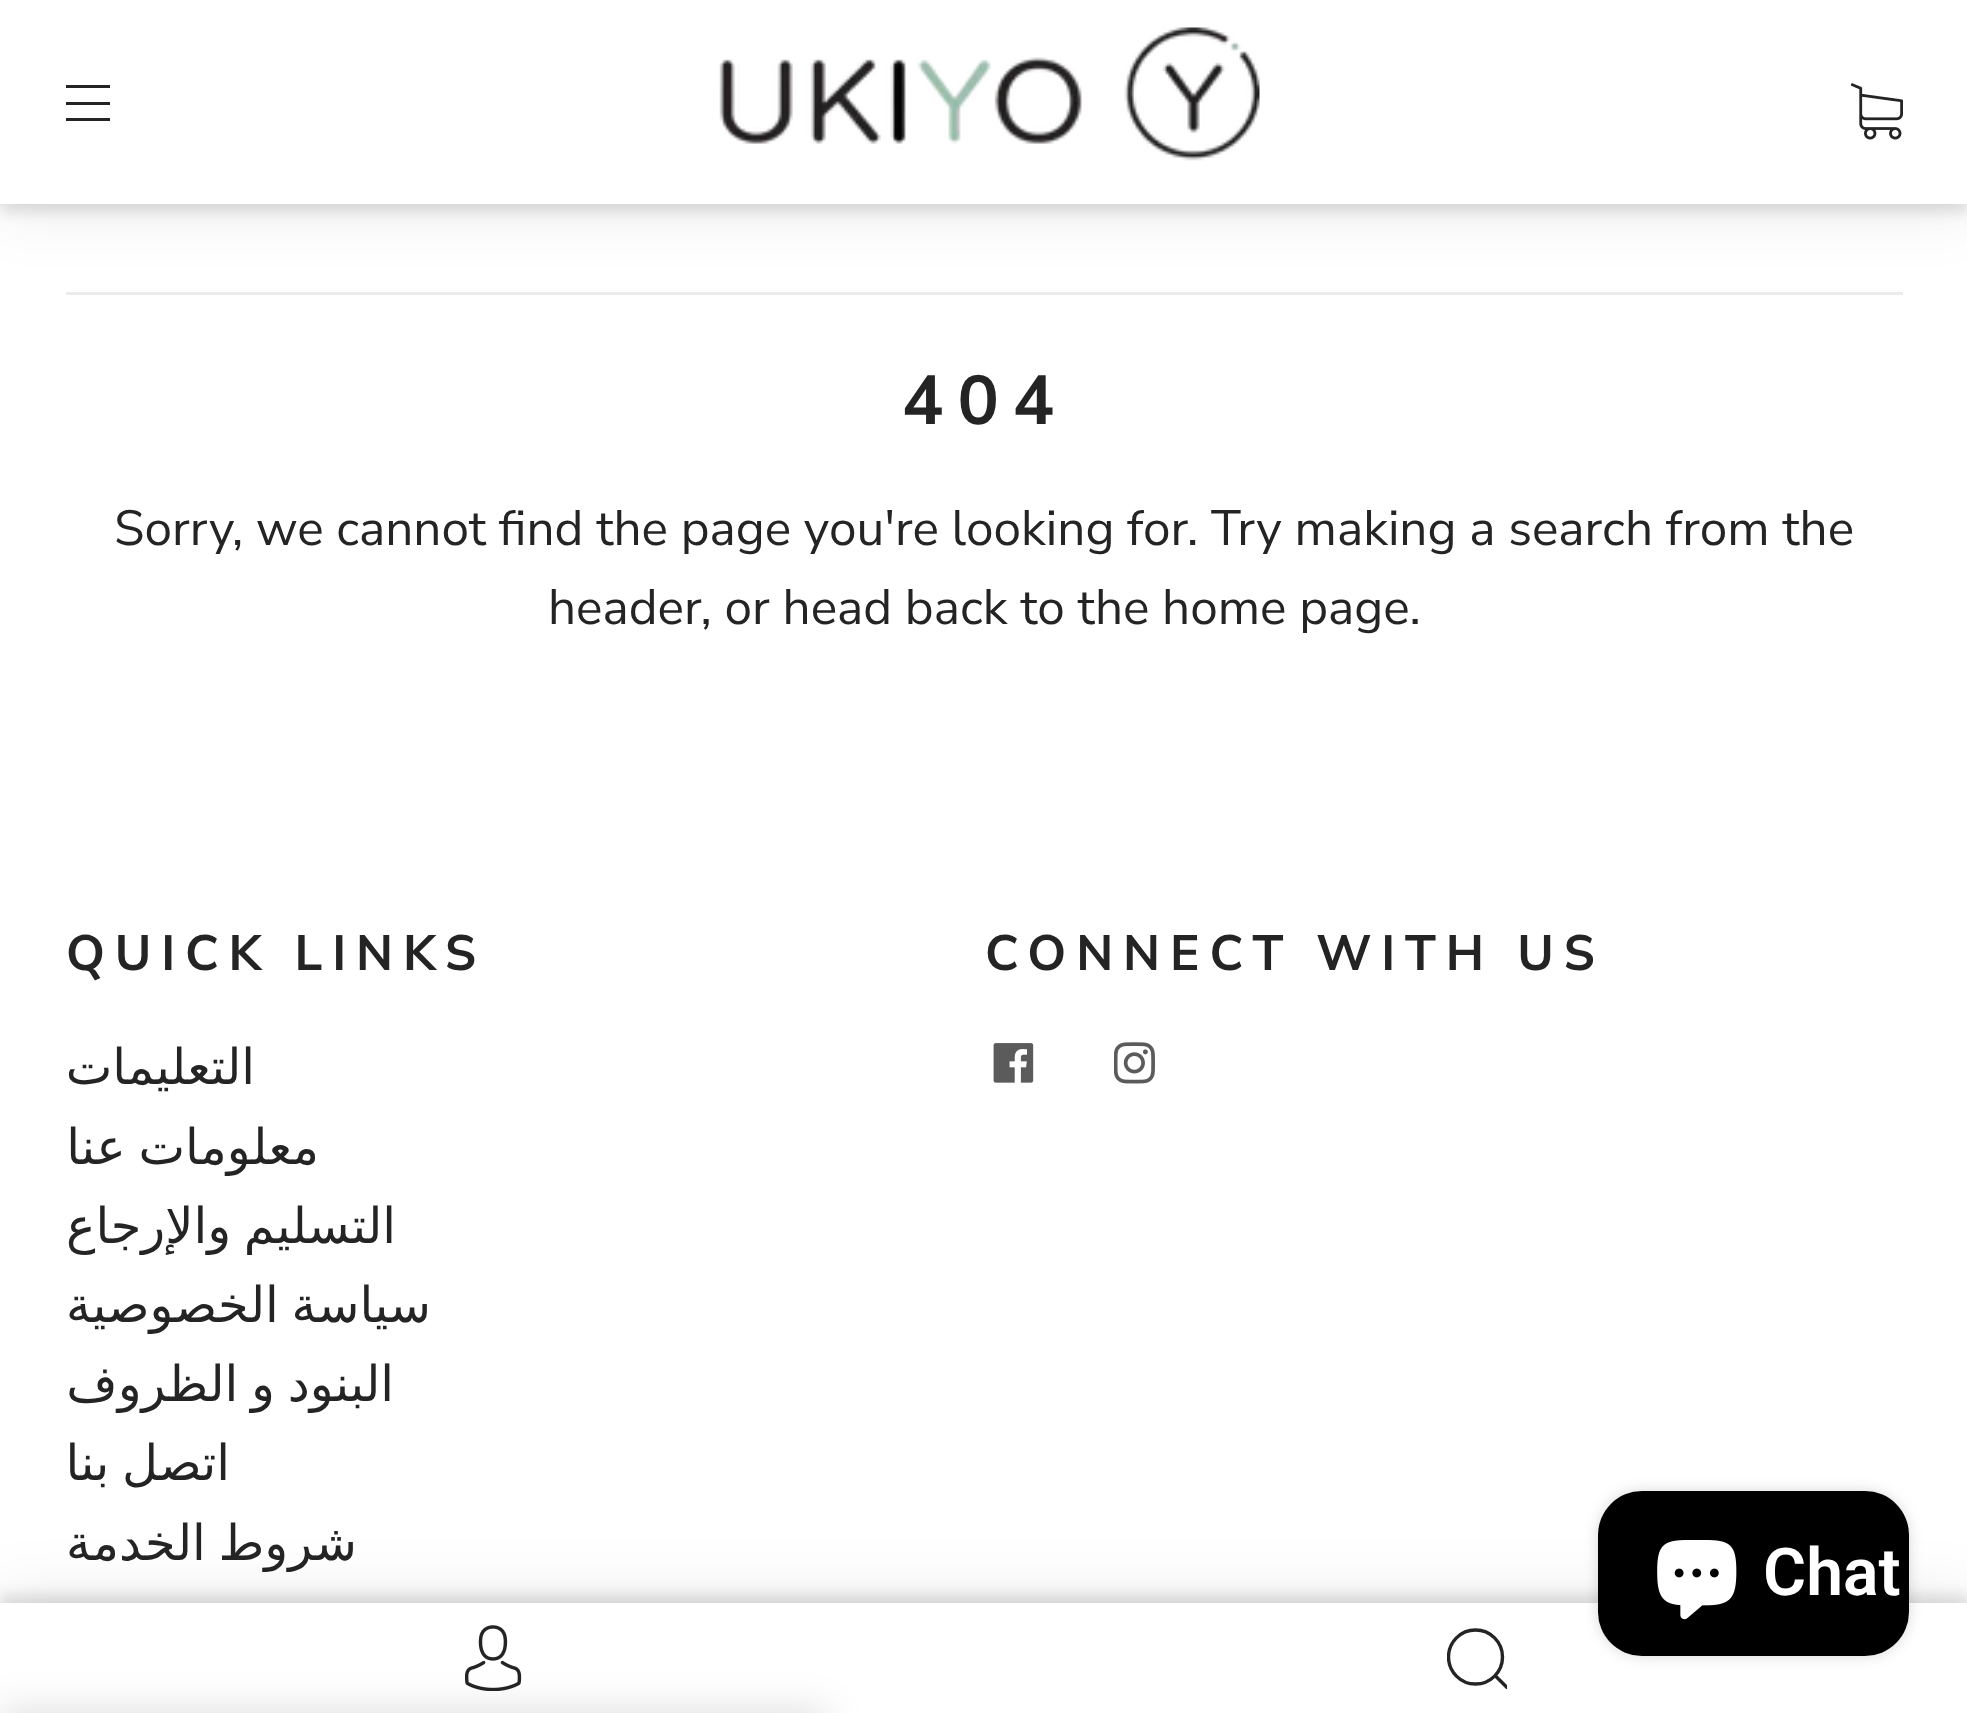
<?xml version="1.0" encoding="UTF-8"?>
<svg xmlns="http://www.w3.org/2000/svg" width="1967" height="1713">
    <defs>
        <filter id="blur1" x="-50%" y="-200%" width="200%" height="500%"><feGaussianBlur stdDeviation="27.5"/></filter>
        <filter id="blur2" x="-50%" y="-200%" width="200%" height="500%"><feGaussianBlur stdDeviation="7"/></filter>
        <clipPath id="clip1"><rect x="1447" y="1628" width="60" height="61"/></clipPath>
        <filter id="blur3" x="-50%" y="-200%" width="200%" height="500%"><feGaussianBlur stdDeviation="20.5"/></filter>
    </defs>
    <rect width="100%" height="100%" fill="#FFFFFF"/>
    <rect x="66" y="292" width="1837" height="3" fill="#EBEBEB"/>
    <rect x="0" y="17" width="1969" height="203" fill="#000000" fill-opacity="0.06" filter="url(#blur1)"/>
    <rect x="0" y="8" width="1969" height="204" fill="#000000" fill-opacity="0.12" filter="url(#blur2)"/>
    <rect x="0" y="0" width="1967" height="204" fill="#FFFFFF"/>
    <rect x="66" y="85" width="44" height="3" fill="#242424"/>
    <rect x="66" y="102" width="44" height="3" fill="#242424"/>
    <rect x="66" y="118" width="44" height="3" fill="#242424"/>
    <image x="719" y="27" width="541" height="134" href="img_01.png"/>
    <image x="1851" y="83" width="52" height="57" href="img_02.png"/>
    <text x="902" y="424" font-family="Nunito Sans" font-size="69" font-weight="700" letter-spacing="14" fill="#242424">404</text>
    <text x="114" y="545" font-family="Nunito Sans" font-size="49.5" fill="#242424">Sorry, we cannot find the page you're looking for. Try making a search from the</text>
    <text x="548" y="624" font-family="Nunito Sans" font-size="49.5" fill="#242424">header, or head back to the home page.</text>
    <text x="66" y="970" font-family="Nunito Sans" font-size="49.5" font-weight="700" letter-spacing="9.9" fill="#242424">QUICK LINKS</text>
    <text x="255" y="1084" font-family="DejaVu Sans" font-size="49.5" direction="rtl" fill="#242424">التعليمات</text>
    <text x="319" y="1164" word-spacing="-3" font-family="DejaVu Sans" font-size="49.5" direction="rtl" fill="#242424">معلومات عنا</text>
    <text x="396" y="1243" word-spacing="-3" font-family="DejaVu Sans" font-size="49.5" direction="rtl" fill="#242424">التسليم والإرجاع</text>
    <text x="431" y="1322" word-spacing="-3" font-family="DejaVu Sans" font-size="49.5" direction="rtl" fill="#242424">سياسة الخصوصية</text>
    <text x="394" y="1401" word-spacing="-3" font-family="DejaVu Sans" font-size="49.5" direction="rtl" fill="#242424">البنود و الظروف</text>
    <text x="230" y="1480" word-spacing="-3" font-family="DejaVu Sans" font-size="49.5" direction="rtl" fill="#242424">اتصل بنا</text>
    <text x="357" y="1560" word-spacing="-3" font-family="DejaVu Sans" font-size="49.5" direction="rtl" fill="#242424">شروط الخدمة</text>
    <text x="985" y="970" font-family="Nunito Sans" font-size="49.5" font-weight="700" letter-spacing="9.9" fill="#242424">CONNECT WITH US</text>
    <image x="993" y="1043" width="41" height="40" href="img_03.png"/>
    <image x="1114" y="1042" width="41" height="42" href="img_04.png"/>
    <rect x="0" y="1587" width="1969" height="110" fill="#000000" fill-opacity="0.06" filter="url(#blur1)"/>
    <rect x="0" y="1595" width="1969" height="110" fill="#000000" fill-opacity="0.12" filter="url(#blur2)"/>
    <rect x="0" y="1603" width="1967" height="110" fill="#FFFFFF"/>
    <image x="465" y="1625" width="57" height="66" href="img_05.png"/>
    <g clip-path="url(#clip1)">
        <circle cx="1475.5" cy="1657" r="27" fill="none" stroke="#242424" stroke-width="3.4"/>
        <path d="M 1494.5 1675 L 1513.5 1694" fill="none" stroke="#242424" stroke-width="3.4"/>
    </g>
    <rect x="1598" y="1491" width="311" height="165" rx="44" fill="#000000" fill-opacity="0.15" filter="url(#blur2)"/>
    <rect x="1598" y="1491" width="311" height="165" rx="44" fill="#000000"/>
    <image x="1657" y="1540" width="80" height="80" href="img_06.png"/>
    <text x="1763" y="1595" font-family="Roboto" font-size="66" font-weight="600" fill="#FFFFFF">Chat</text>
    <rect x="0" y="1713" width="825" height="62" fill="#000000" fill-opacity="0.15" filter="url(#blur3)"/>
</svg>
